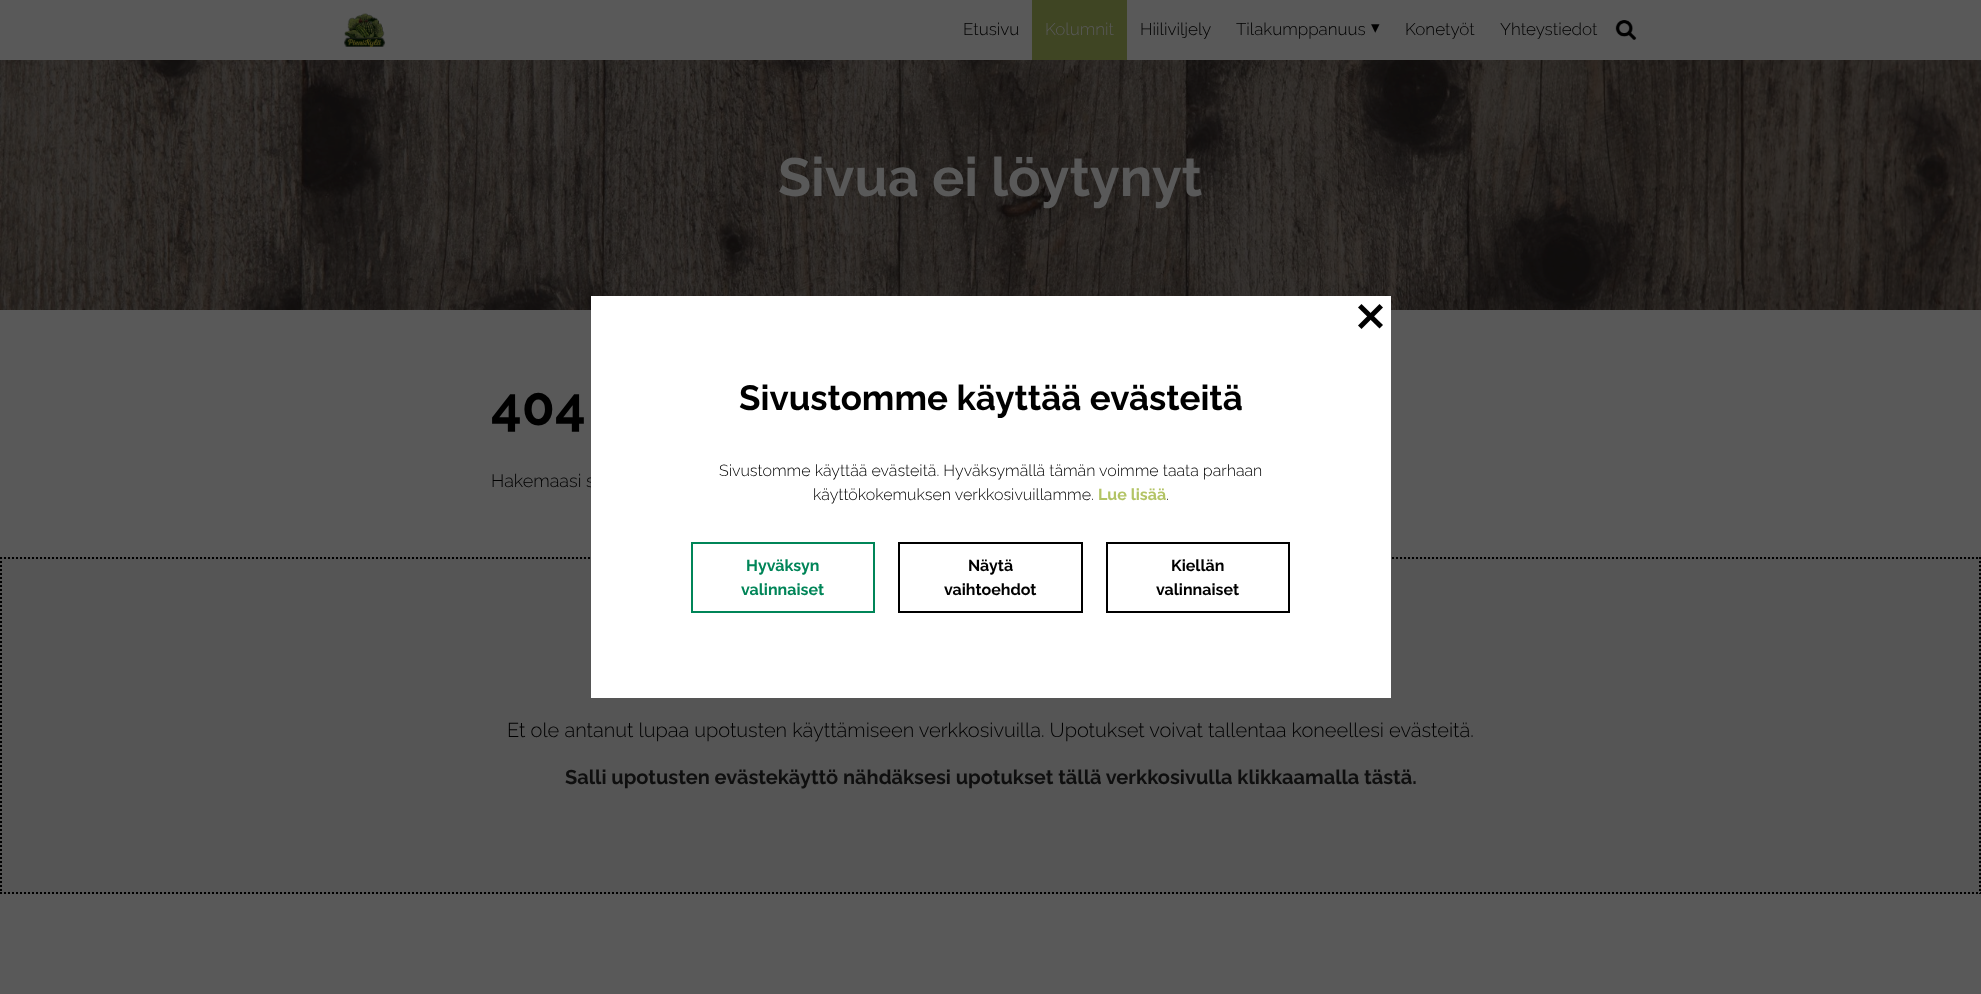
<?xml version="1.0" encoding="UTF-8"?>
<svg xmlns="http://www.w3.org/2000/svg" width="1981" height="994">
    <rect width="100%" height="100%" fill="#595959"/>
    <image x="344" y="13" width="42" height="34" href="img_01.png"/>
    <text x="963" y="35" font-family="Raleway" font-size="17" font-weight="300" fill="#000000">Etusivu</text>
    <rect x="1032" y="0" width="95" height="60" fill="#3F4523"/>
    <text x="1045" y="35" font-family="Raleway" font-size="17" font-weight="300" fill="#595959">Kolumnit</text>
    <text x="1140" y="35" font-family="Raleway" font-size="17" font-weight="300" fill="#000000">Hiiliviljely</text>
    <text x="1236" y="35" font-family="Raleway" font-size="17" font-weight="300" fill="#000000">Tilakumppanuus</text>
    <text x="1371" y="33" font-family="DejaVu Sans" font-size="17" fill="#000000">▾</text>
    <text x="1405" y="35" font-family="Raleway" font-size="17" font-weight="300" fill="#000000">Konetyöt</text>
    <text x="1500" y="35" font-family="Raleway" font-size="17" font-weight="300" fill="#000000">Yhteystiedot</text>
    <image x="1615" y="20" width="22" height="20" href="img_02.png"/>
    <image x="0" y="60" width="1981" height="250" href="img_03.png"/>
    <rect x="0" y="60" width="1981" height="250" fill="#040101" fill-opacity="0.4"/>
    <text x="778" y="196" font-family="Raleway" font-size="54" font-weight="700" fill="#595959">Sivua ei löytynyt</text>
    <text x="491" y="425" font-family="Raleway" font-size="54" font-weight="700" fill="#000000">404</text>
    <text x="491" y="487" font-family="Raleway" font-size="18" font-weight="300" fill="#000000">Hakemaasi s</text>
    <rect x="0" y="557" width="1981" height="337" fill="#555555"/>
    <path d="M 0 558 H 1981" fill="none" stroke="#000000" stroke-width="2" stroke-dasharray="2 2"/>
    <rect x="591" y="296" width="800" height="402" fill="#FFFFFF"/>
    <path d="M 1358 325.5 L 1379.5 304 L 1383 307.5 L 1361.5 329 Z" fill="#000000"/>
    <path d="M 1361.5 304 L 1383 325 L 1379.5 328.5 L 1358 307.5 Z" fill="#000000"/>
    <text x="739" y="410" font-family="Raleway" font-size="35" font-weight="700" fill="#000000">Sivustomme käyttää evästeitä</text>
    <text x="719" y="476" font-family="Raleway" font-size="16" font-weight="300" fill="#000000">Sivustomme käyttää evästeitä. Hyväksymällä tämän voimme taata parhaan</text>
    <text x="813" y="500" font-family="Raleway" font-size="16" font-weight="300" fill="#000000">käyttökokemuksen verkkosivuillamme.</text>
    <text x="1098" y="500" font-family="Raleway" font-size="16" font-weight="700" fill="#B3C465">Lue lisää</text>
    <text x="1166" y="500" font-family="Raleway" font-size="16" font-weight="300" fill="#000000">.</text>
    <rect x="692" y="543" width="182" height="69" fill="none" stroke="#008558" stroke-width="2"/>
    <text x="746" y="571" font-family="Raleway" font-size="16" font-weight="700" fill="#008558">Hyväksyn</text>
    <text x="741" y="595" font-family="Raleway" font-size="16" font-weight="700" fill="#008558">valinnaiset</text>
    <rect x="899" y="543" width="183" height="69" fill="none" stroke="#000000" stroke-width="2"/>
    <text x="968" y="571" font-family="Raleway" font-size="16" font-weight="700" fill="#000000">Näytä</text>
    <text x="944" y="595" font-family="Raleway" font-size="16" font-weight="700" fill="#000000">vaihtoehdot</text>
    <rect x="1107" y="543" width="182" height="69" fill="none" stroke="#000000" stroke-width="2"/>
    <text x="1171" y="571" font-family="Raleway" font-size="16" font-weight="700" fill="#000000">Kiellän</text>
    <text x="1156" y="595" font-family="Raleway" font-size="16" font-weight="700" fill="#000000">valinnaiset</text>
    <path d="M 1980 557 V 894" fill="none" stroke="#000000" stroke-width="2" stroke-dasharray="2 2"/>
    <path d="M 0 893 H 1981" fill="none" stroke="#000000" stroke-width="2" stroke-dasharray="2 2"/>
    <path d="M 1 557 V 894" fill="none" stroke="#000000" stroke-width="2" stroke-dasharray="2 2"/>
    <text x="507" y="737" font-family="Raleway" font-size="20" font-weight="300" fill="#000000">Et ole antanut lupaa upotusten käyttämiseen verkkosivuilla. Upotukset voivat tallentaa koneellesi evästeitä.</text>
    <text x="565" y="784" font-family="Raleway" font-size="20" font-weight="700" fill="#0F0F0F">Salli upotusten evästekäyttö nähdäksesi upotukset tällä verkkosivulla klikkaamalla tästä.</text>
</svg>
